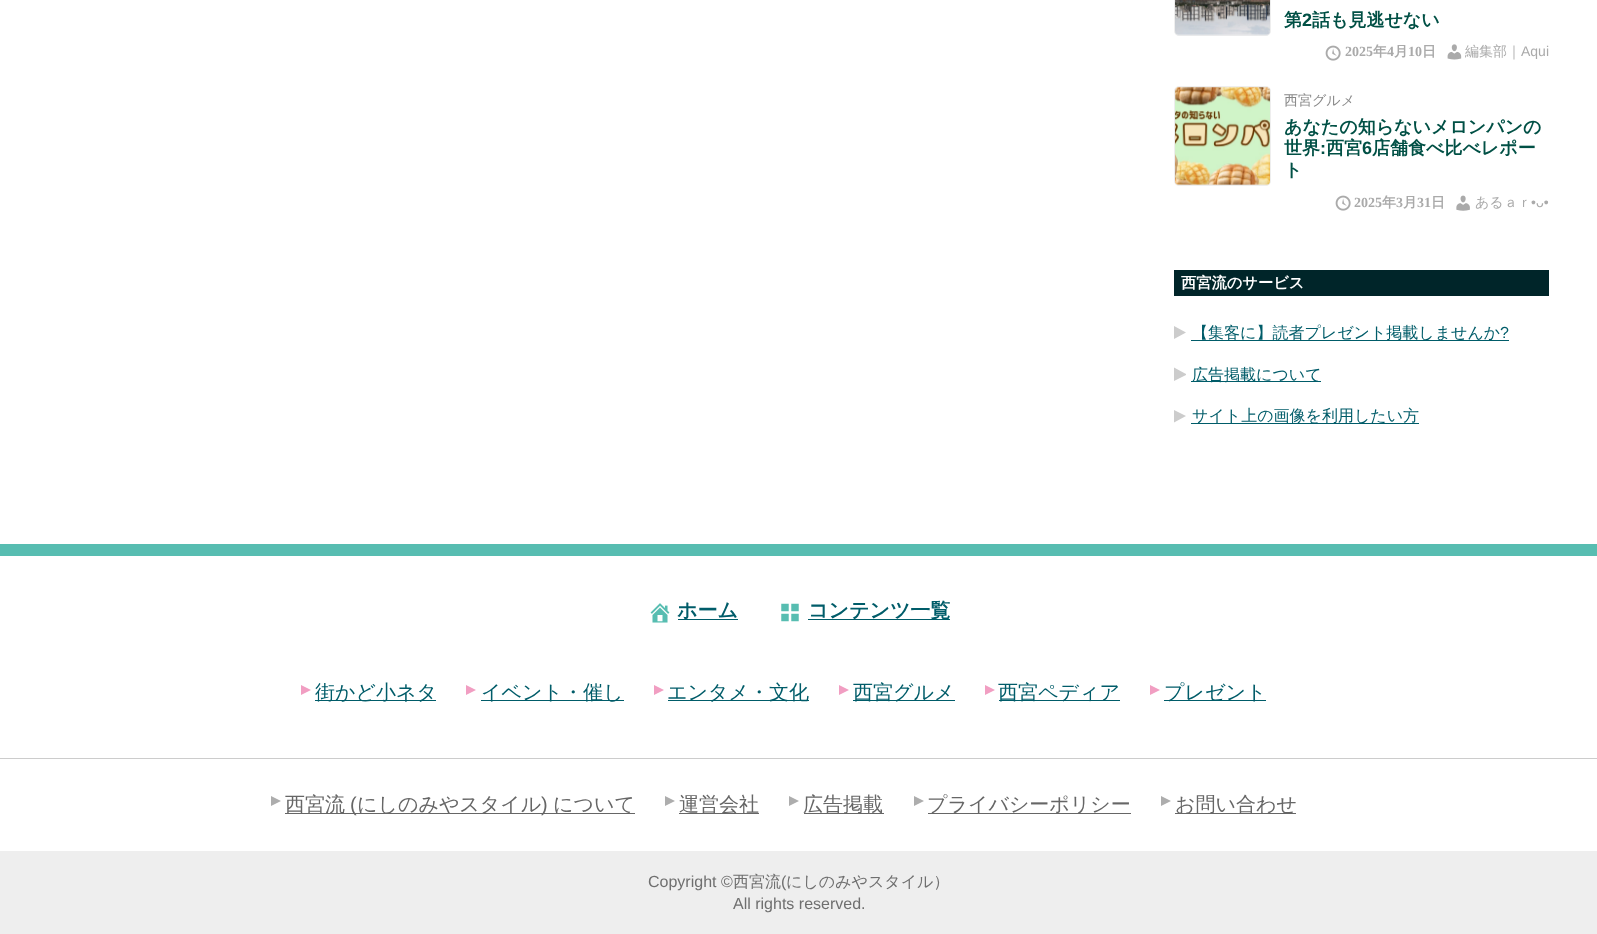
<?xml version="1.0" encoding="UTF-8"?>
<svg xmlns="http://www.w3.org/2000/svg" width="1597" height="934">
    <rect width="100%" height="100%" fill="#FFFFFF"/>
    <rect x="1174.5" y="-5.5" width="96" height="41" rx="4.5" fill="#EEEEEE" stroke="#EEEEEE"/>
    <image x="1175" y="0" width="95" height="36" href="img_01.png"/>
    <text x="1284" y="26" font-family="WenQuanYi Zen Hei" font-size="18" font-weight="700" fill="#015045">第</text>
    <text x="1302" y="26" font-family="Liberation Sans" font-size="18" font-weight="700" fill="#015045">2</text>
    <text x="1312" y="26" font-family="WenQuanYi Zen Hei" font-size="18" font-weight="700" fill="#015045">話も見逃せない</text>
    <image x="1325" y="45" width="16" height="16" href="img_02.png"/>
    <text x="1345" y="56" font-family="Liberation Serif" font-size="14" font-weight="700" fill="#AAAAAA">2025</text>
    <text x="1373" y="56" font-family="WenQuanYi Zen Hei" font-size="14" font-weight="700" fill="#AAAAAA">年</text>
    <text x="1387" y="56" font-family="Liberation Serif" font-size="14" font-weight="700" fill="#AAAAAA">4</text>
    <text x="1394" y="56" font-family="WenQuanYi Zen Hei" font-size="14" font-weight="700" fill="#AAAAAA">月</text>
    <text x="1408" y="56" font-family="Liberation Serif" font-size="14" font-weight="700" fill="#AAAAAA">10</text>
    <text x="1422" y="56" font-family="WenQuanYi Zen Hei" font-size="14" font-weight="700" fill="#AAAAAA">日</text>
    <image x="1447" y="44" width="15" height="16" href="img_03.png"/>
    <text x="1465" y="56" font-family="WenQuanYi Zen Hei" font-size="14" font-weight="500" fill="#AAAAAA">編集部｜</text>
    <text x="1521" y="56" font-family="Liberation Sans" font-size="14" fill="#AAAAAA">Aqui</text>
    <rect x="1174.5" y="86.5" width="96" height="99" rx="4.5" fill="#EEEEEE" stroke="#EEEEEE"/>
    <image x="1175" y="87" width="95" height="98" href="img_04.png"/>
    <text x="1284" y="105" font-family="WenQuanYi Zen Hei" font-size="14" font-weight="500" fill="#888888">西宮グルメ</text>
    <text font-family="WenQuanYi Zen Hei" font-size="18" font-weight="700" fill="#015045">
        <tspan x="1284" y="133">あなたの知らないメロンパンの</tspan>
        <tspan x="1284" y="154">世界</tspan>
    </text>
    <text x="1320" y="154" font-family="Liberation Sans" font-size="18" font-weight="700" fill="#015045">:</text>
    <text x="1326" y="154" font-family="WenQuanYi Zen Hei" font-size="18" font-weight="700" fill="#015045">西宮</text>
    <text x="1362" y="154" font-family="Liberation Sans" font-size="18" font-weight="700" fill="#015045">6</text>
    <text x="1372" y="154" font-family="WenQuanYi Zen Hei" font-size="18" font-weight="700" fill="#015045">店舗食べ比べレポー</text>
    <text x="1284" y="176" font-family="WenQuanYi Zen Hei" font-size="18" font-weight="700" fill="#015045">ト</text>
    <image x="1335" y="195" width="16" height="16" href="img_02.png"/>
    <text x="1354" y="207" font-family="Liberation Serif" font-size="14" font-weight="700" fill="#AAAAAA">2025</text>
    <text x="1382" y="207" font-family="WenQuanYi Zen Hei" font-size="14" font-weight="700" fill="#AAAAAA">年</text>
    <text x="1396" y="207" font-family="Liberation Serif" font-size="14" font-weight="700" fill="#AAAAAA">3</text>
    <text x="1403" y="207" font-family="WenQuanYi Zen Hei" font-size="14" font-weight="700" fill="#AAAAAA">月</text>
    <text x="1417" y="207" font-family="Liberation Serif" font-size="14" font-weight="700" fill="#AAAAAA">31</text>
    <text x="1431" y="207" font-family="WenQuanYi Zen Hei" font-size="14" font-weight="700" fill="#AAAAAA">日</text>
    <image x="1456" y="195" width="14" height="16" href="img_05.png"/>
    <text x="1475" y="207" font-family="WenQuanYi Zen Hei" font-size="14" font-weight="500" fill="#AAAAAA">あるａｒ</text>
    <text x="1531" y="207" font-family="Liberation Sans" font-size="14" fill="#AAAAAA">•ᴗ•</text>
    <rect x="1174" y="270" width="375" height="26" fill="#002529"/>
    <text x="1181" y="288" font-family="WenQuanYi Zen Hei" font-size="15.25" font-weight="700" fill="#FFFFFF">西宮流のサービス</text>
    <path d="M 1174 339 V 326 L 1186 332.5 Z" fill="#CCCCCC"/>
    <rect x="1191" y="340" width="318" height="1" fill="#005C69"/>
    <text x="1192" y="338" font-family="WenQuanYi Zen Hei" font-size="16" font-weight="500" fill="#005C69">【集客に】読者プレゼント掲載しませんか</text>
    <text x="1500" y="338" font-family="Liberation Sans" font-size="16" fill="#005C69">?</text>
    <path d="M 1174 381 V 367.5 L 1186 374 V 375 Z" fill="#CCCCCC"/>
    <rect x="1191" y="381" width="130" height="1" fill="#005C69"/>
    <text x="1192" y="380" font-family="WenQuanYi Zen Hei" font-size="16" font-weight="500" fill="#005C69">広告掲載について</text>
    <path d="M 1174 422.5 V 410 L 1186 416 Z" fill="#CCCCCC"/>
    <rect x="1191" y="423" width="228" height="1" fill="#005C69"/>
    <text x="1192" y="421" font-family="WenQuanYi Zen Hei" font-size="16" font-weight="500" fill="#005C69">サイト上の画像を利用したい方</text>
    <rect x="0" y="544" width="1597" height="12" fill="#57BDB1"/>
    <image x="650" y="603" width="20" height="20" href="img_06.png"/>
    <rect x="678" y="619" width="60" height="1" fill="#005C69"/>
    <text x="677" y="617" font-family="WenQuanYi Zen Hei" font-size="20" font-weight="700" fill="#005C69">ホーム</text>
    <image x="781" y="603" width="18" height="19" href="img_07.png"/>
    <rect x="808" y="619" width="142" height="1" fill="#005C69"/>
    <text x="808" y="617" font-family="WenQuanYi Zen Hei" font-size="20" font-weight="700" fill="#005C69">コンテンツ一覧</text>
    <path d="M 301 695 V 685 L 311 690 Z" fill="#F19EC2"/>
    <rect x="315" y="700" width="121" height="1" fill="#005C69"/>
    <text x="315" y="699" font-family="WenQuanYi Zen Hei" font-size="20" font-weight="500" fill="#005C69">街かど小ネタ</text>
    <path d="M 466 695 V 685 L 476 690 Z" fill="#F19EC2"/>
    <rect x="481" y="700" width="143" height="1" fill="#005C69"/>
    <text x="481" y="699" font-family="WenQuanYi Zen Hei" font-size="20" font-weight="500" fill="#005C69">イベント・催し</text>
    <path d="M 654 695 V 685 L 664 690 Z" fill="#F19EC2"/>
    <rect x="668" y="700" width="141" height="1" fill="#005C69"/>
    <text x="667" y="699" font-family="WenQuanYi Zen Hei" font-size="20" font-weight="500" fill="#005C69">エンタメ・文化</text>
    <path d="M 839 695 V 685 L 849 690 Z" fill="#F19EC2"/>
    <rect x="853" y="700" width="102" height="1" fill="#005C69"/>
    <text x="853" y="699" font-family="WenQuanYi Zen Hei" font-size="20" font-weight="500" fill="#005C69">西宮グルメ</text>
    <path d="M 985 695 V 685 L 995 690 Z" fill="#F19EC2"/>
    <rect x="999" y="700" width="121" height="1" fill="#005C69"/>
    <text x="998" y="699" font-family="WenQuanYi Zen Hei" font-size="20" font-weight="500" fill="#005C69">西宮ペディア</text>
    <path d="M 1150 695 V 685 L 1160 690 Z" fill="#F19EC2"/>
    <rect x="1164" y="700" width="102" height="1" fill="#005C69"/>
    <text x="1164" y="699" font-family="WenQuanYi Zen Hei" font-size="20" font-weight="500" fill="#005C69">プレゼント</text>
    <rect x="0" y="758" width="1597" height="1" fill="#CCCCCC"/>
    <path d="M 271 806 V 796 L 281 801 Z" fill="#ADADAD"/>
    <rect x="285" y="813" width="350" height="1" fill="#666666"/>
    <text x="285" y="811" font-family="WenQuanYi Zen Hei" font-size="20" font-weight="500" fill="#666666">西宮流</text>
    <text x="350" y="811" font-family="Liberation Sans" font-size="20" fill="#666666">(</text>
    <text x="357" y="811" font-family="WenQuanYi Zen Hei" font-size="20" font-weight="500" fill="#666666">にしのみやスタイル</text>
    <text x="541" y="811" font-family="Liberation Sans" font-size="20" fill="#666666">)</text>
    <text x="553" y="811" font-family="WenQuanYi Zen Hei" font-size="20" font-weight="500" fill="#666666">について</text>
    <path d="M 665 806 V 796 L 675 801 Z" fill="#ADADAD"/>
    <rect x="679" y="813" width="80" height="1" fill="#666666"/>
    <text x="679" y="811" font-family="WenQuanYi Zen Hei" font-size="20" font-weight="500" fill="#666666">運営会社</text>
    <path d="M 789 806 V 796 L 799 801 Z" fill="#ADADAD"/>
    <rect x="804" y="813" width="80" height="1" fill="#666666"/>
    <text x="803" y="811" font-family="WenQuanYi Zen Hei" font-size="20" font-weight="500" fill="#666666">広告掲載</text>
    <path d="M 914 806 V 796 L 924 801 Z" fill="#ADADAD"/>
    <rect x="928" y="813" width="203" height="1" fill="#666666"/>
    <text x="927" y="811" font-family="WenQuanYi Zen Hei" font-size="20" font-weight="500" fill="#666666">プライバシーポリシー</text>
    <path d="M 1161 806 V 796 L 1171 801 Z" fill="#ADADAD"/>
    <rect x="1175" y="813" width="121" height="1" fill="#666666"/>
    <text x="1175" y="811" font-family="WenQuanYi Zen Hei" font-size="20" font-weight="500" fill="#666666">お問い合わせ</text>
    <rect x="0" y="851" width="1597" height="83" fill="#EEEEEE"/>
    <text x="648" y="887" font-family="Liberation Sans" font-size="16" fill="#6F6F6F">Copyright ©</text>
    <text x="733" y="887" font-family="WenQuanYi Zen Hei" font-size="16" font-weight="500" fill="#6F6F6F">西宮流</text>
    <text x="781" y="887" font-family="Liberation Sans" font-size="16" fill="#6F6F6F">(</text>
    <text x="786" y="887" font-family="WenQuanYi Zen Hei" font-size="16" font-weight="500" fill="#6F6F6F">にしのみやスタイル）</text>
    <text x="733" y="909" font-family="Liberation Sans" font-size="16" fill="#6F6F6F">All rights reserved.</text>
</svg>
